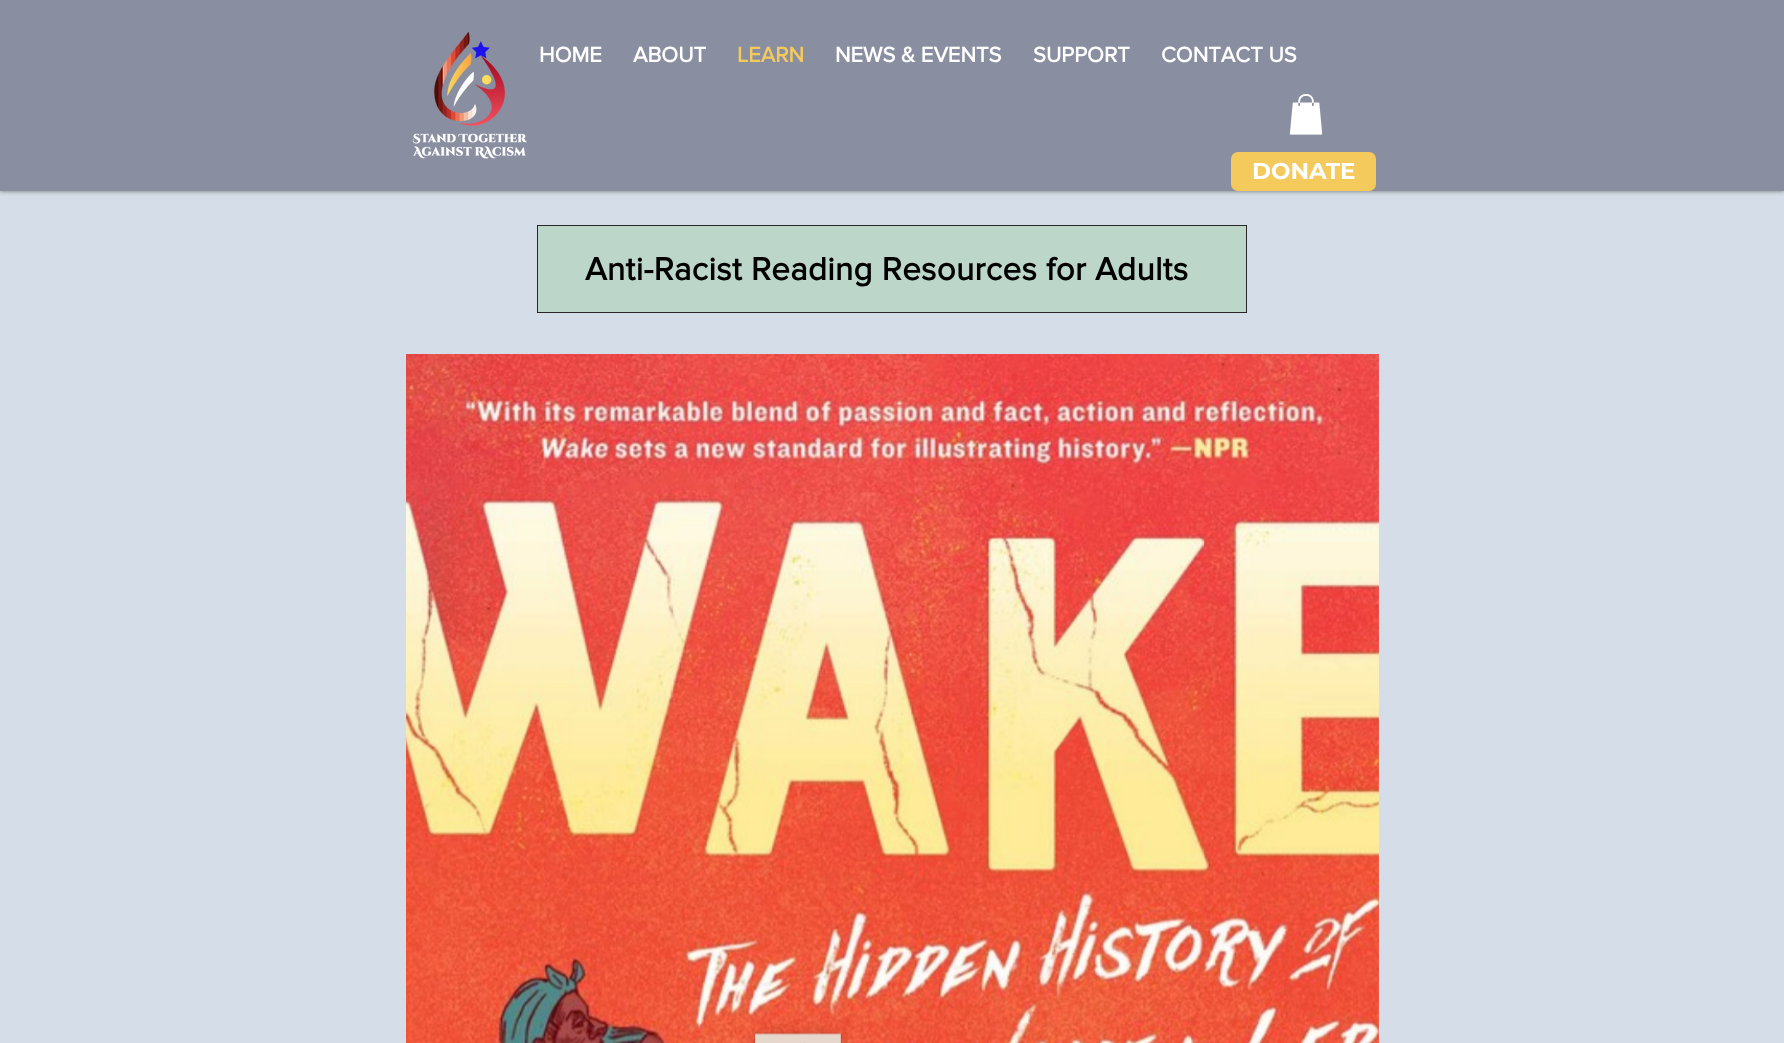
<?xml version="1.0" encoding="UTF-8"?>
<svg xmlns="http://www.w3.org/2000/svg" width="1784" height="1043">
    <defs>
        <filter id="blur1" x="-50%" y="-200%" width="200%" height="500%"><feGaussianBlur stdDeviation="2.5"/></filter>
    </defs>
    <rect width="100%" height="100%" fill="#D5DEE8"/>
    <rect x="0" y="0" width="1784" height="191" fill="#000000" fill-opacity="0.5" filter="url(#blur1)"/>
    <rect x="0" y="0" width="1784" height="191" fill="#898FA1"/>
    <image x="412" y="32" width="115" height="127" href="img_01.png"/>
    <text x="539" y="62" font-family="'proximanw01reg'" font-size="22" font-weight="700" fill="#FFFFFF">HOME</text>
    <text x="633" y="62" font-family="'proximanw01reg'" font-size="22" font-weight="700" fill="#FFFFFF">ABOUT</text>
    <text x="737" y="62" font-family="'proximanw01reg'" font-size="22" font-weight="700" fill="#F5CA5C">LEARN</text>
    <text x="835" y="62" font-family="'proximanw01reg'" font-size="22" font-weight="700" fill="#FFFFFF">NEWS &amp; EVENTS</text>
    <text x="1033" y="62" font-family="'proximanw01reg'" font-size="22" font-weight="700" fill="#FFFFFF">SUPPORT</text>
    <text x="1161" y="62" font-family="'proximanw01reg'" font-size="22" font-weight="700" fill="#FFFFFF">CONTACT US</text>
    <image x="1289" y="94" width="34" height="41" href="img_02.png"/>
    <rect x="1231" y="152" width="145" height="39" rx="7" fill="#F5CA5C"/>
    <text x="1252" y="179" font-family="Montserrat" font-size="23" font-weight="700" fill="#FFFFFF">DONATE</text>
    <rect x="537.5" y="225.5" width="709" height="87" fill="#BCD6C9" stroke="#282626"/>
    <text x="585" y="280" font-family="'proximanw01reg'" font-size="33" font-weight="700" letter-spacing="0.35" fill="#000000">Anti-Racist Reading Resources for Adults</text>
    <image x="406" y="354" width="973" height="689" href="img_03.png"/>
</svg>
